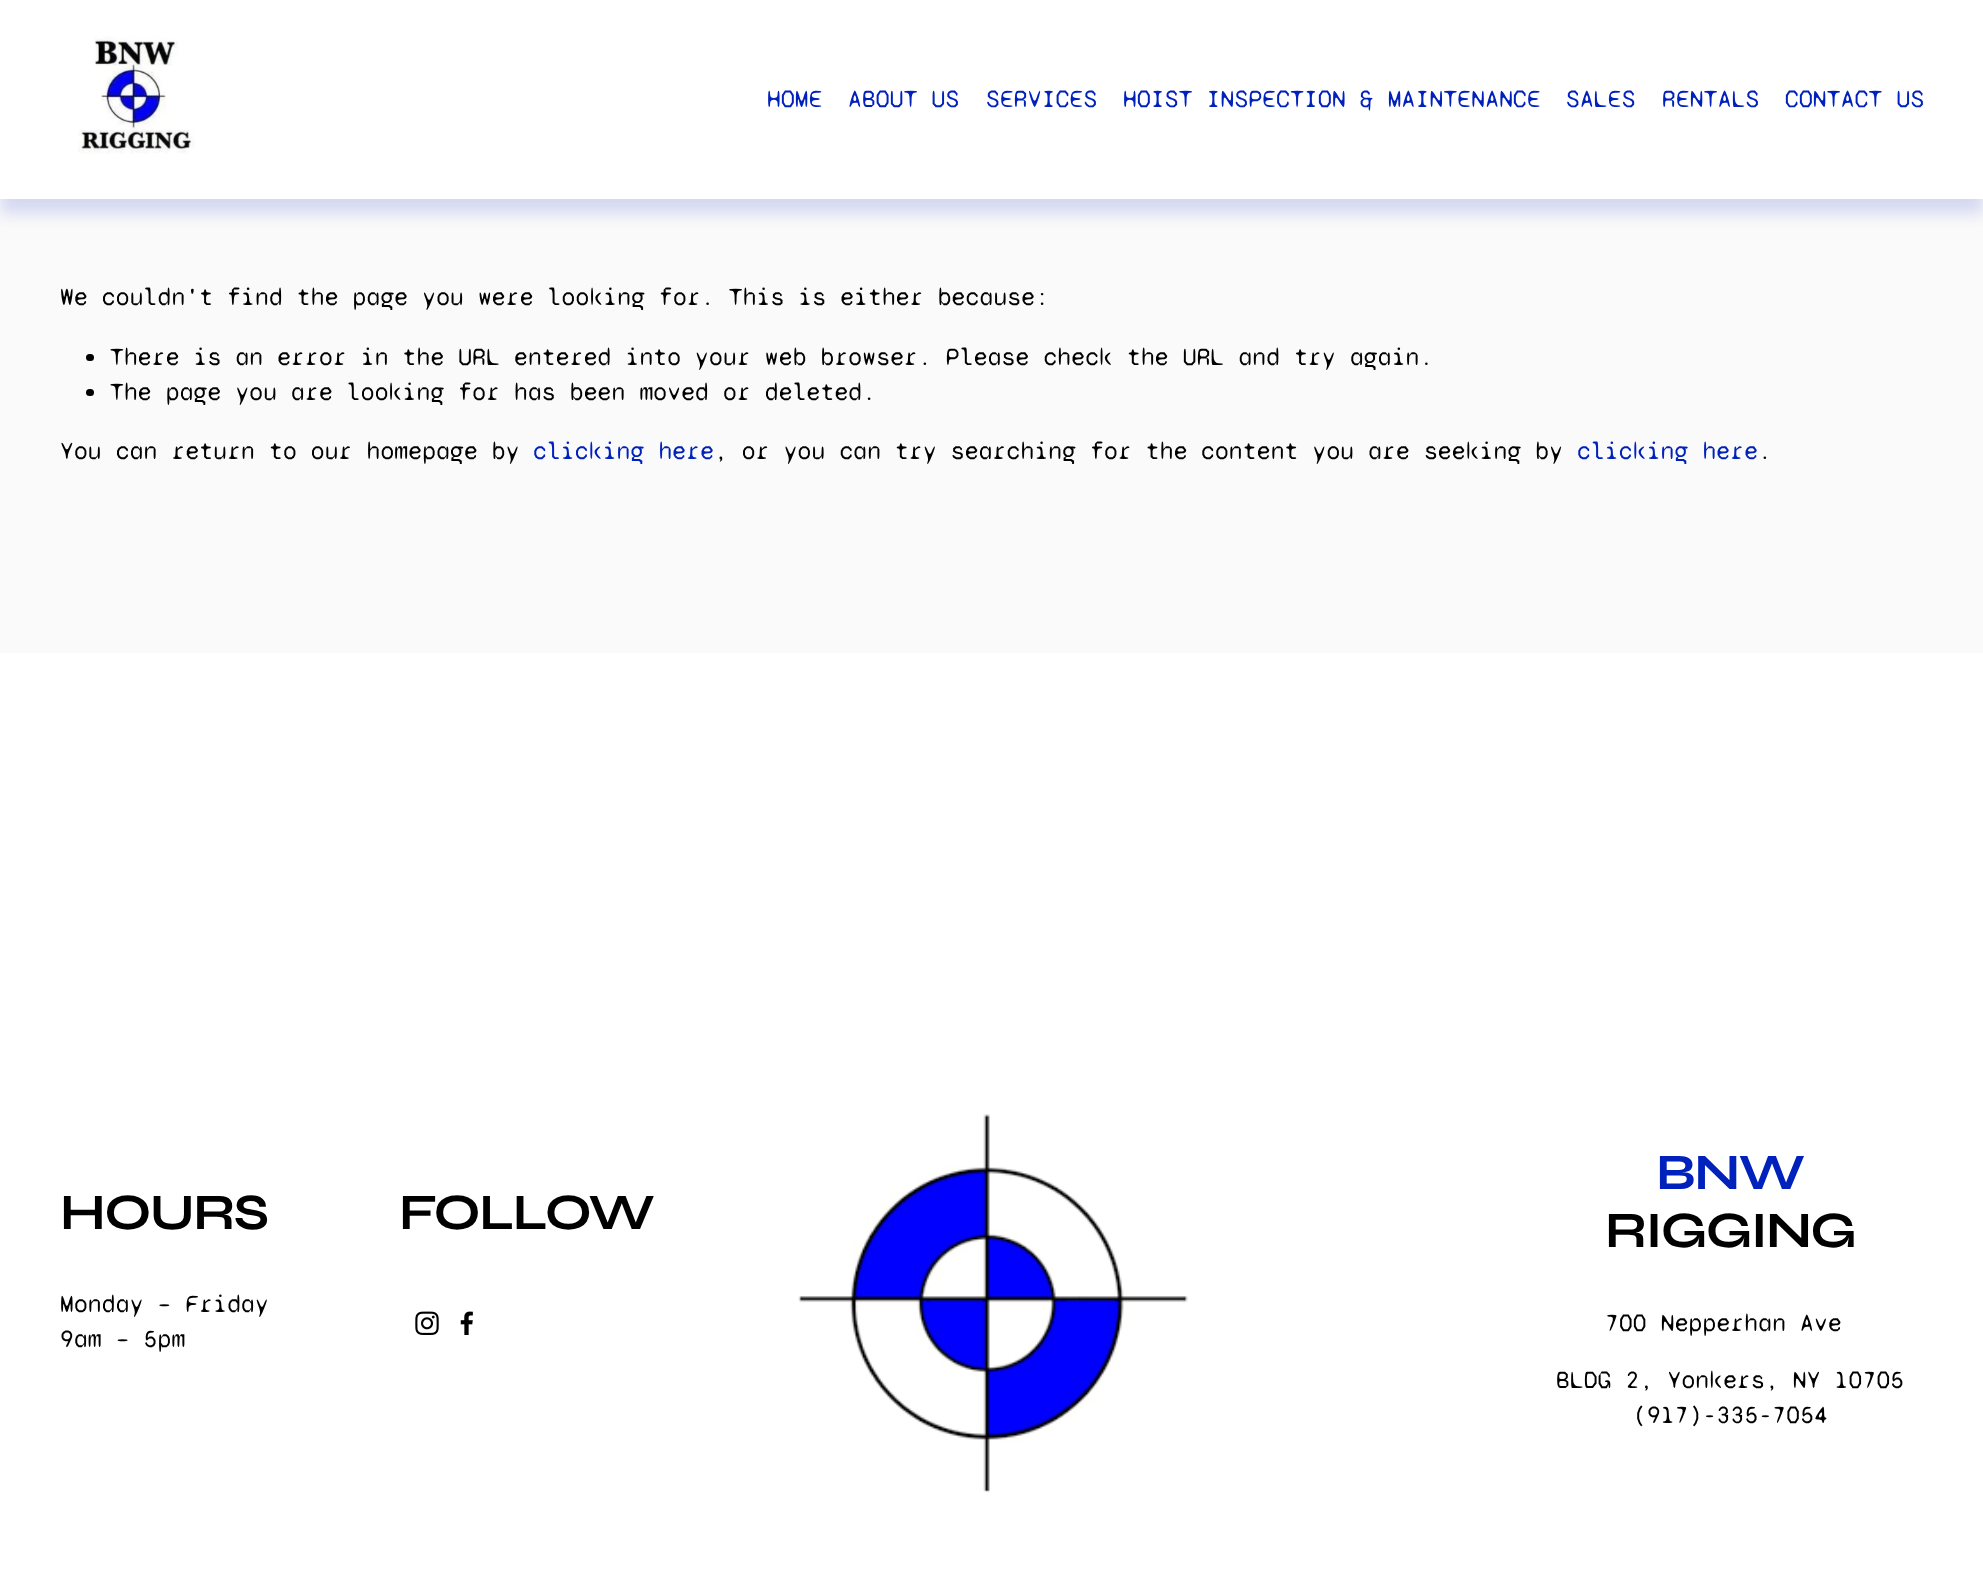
<?xml version="1.0" encoding="UTF-8"?>
<svg xmlns="http://www.w3.org/2000/svg" width="1983" height="1570">
    <defs>
        <filter id="blur1" x="-50%" y="-200%" width="200%" height="500%"><feGaussianBlur stdDeviation="7.5"/></filter>
    </defs>
    <rect width="100%" height="100%" fill="#FAFAFA"/>
    <rect x="0" y="15" width="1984" height="199" fill="#D5D9F1" filter="url(#blur1)"/>
    <rect x="0" y="0" width="1983" height="199" fill="#FFFFFF"/>
    <image x="78" y="36" width="117" height="118" href="img_01.png"/>
    <text x="767" y="107" font-family="Syne Mono" font-size="24.88" letter-spacing="0.25" fill="#0021BC">HOME</text>
    <text x="848" y="107" font-family="Syne Mono" font-size="24.88" letter-spacing="0.25" fill="#0021BC">ABOUT US</text>
    <text x="986" y="107" font-family="Syne Mono" font-size="24.88" letter-spacing="0.25" fill="#0021BC">SERVICES</text>
    <text x="1123" y="107" font-family="Syne Mono" font-size="24.88" letter-spacing="0.25" fill="#0021BC">HOIST INSPECTION &amp; MAINTENANCE</text>
    <text x="1566" y="107" font-family="Syne Mono" font-size="24.88" letter-spacing="0.25" fill="#0021BC">SALES</text>
    <text x="1662" y="107" font-family="Syne Mono" font-size="24.88" letter-spacing="0.25" fill="#0021BC">RENTALS</text>
    <text x="1785" y="107" font-family="Syne Mono" font-size="24.88" letter-spacing="0.25" fill="#0021BC">CONTACT US</text>
    <text x="60" y="305" font-family="Syne Mono" font-size="24.88" letter-spacing="0.25" fill="#000000">We couldn't find the page you were looking for. This is either because:</text>
    <rect x="86" y="354" width="8" height="7" rx="3.5" fill="#000000"/>
    <text x="110" y="365" font-family="Syne Mono" font-size="24.88" letter-spacing="0.25" fill="#000000">There is an error in the URL entered into your web browser. Please check the URL and try again.</text>
    <rect x="86" y="389" width="8" height="7" rx="3.5" fill="#000000"/>
    <text x="110" y="400" font-family="Syne Mono" font-size="24.88" letter-spacing="0.25" fill="#000000">The page you are looking for has been moved or deleted.</text>
    <text x="60" y="459" font-family="Syne Mono" font-size="24.88" letter-spacing="0.25" fill="#000000">You can return to our homepage by</text>
    <text x="533" y="459" font-family="Syne Mono" font-size="24.88" letter-spacing="0.25" fill="#0021BC">clicking here</text>
    <text x="714" y="459" font-family="Syne Mono" font-size="24.88" letter-spacing="0.25" fill="#000000">, or you can try searching for the</text>
    <text x="1201" y="459" font-family="Syne Mono" font-size="24.88" letter-spacing="0.25" fill="#000000">content you are seeking by</text>
    <text x="1577" y="459" font-family="Syne Mono" font-size="24.88" letter-spacing="0.25" fill="#0021BC">clicking here</text>
    <text x="1758" y="459" font-family="Syne Mono" font-size="24.88" letter-spacing="0.25" fill="#000000">.</text>
    <rect x="0" y="653" width="1983" height="917" fill="#FFFFFF"/>
    <text x="60" y="1229" font-family="Syne" font-size="51" font-weight="700" letter-spacing="-1.5" fill="#000000">HOURS</text>
    <text font-family="Syne Mono" font-size="24.88" letter-spacing="0.25" fill="#000000">
        <tspan x="60" y="1312">Monday – Friday</tspan>
        <tspan x="60" y="1347">9am – 5pm</tspan>
    </text>
    <text x="399" y="1229" font-family="Syne" font-size="51" font-weight="700" letter-spacing="-1.5" fill="#000000">FOLLOW</text>
    <image x="798" y="1114" width="390" height="379" href="img_02.png"/>
    <text x="1656" y="1189" font-family="Syne" font-size="51" font-weight="700" letter-spacing="-1.5" fill="#0021BC">BNW</text>
    <text x="1605" y="1247" font-family="Syne" font-size="51" font-weight="700" letter-spacing="-1.5" fill="#000000">RIGGING</text>
    <text x="1605" y="1331" font-family="Syne Mono" font-size="24.88" letter-spacing="0.25" fill="#000000">700 Nepperhan Ave</text>
    <text x="1556" y="1388" font-family="Syne Mono" font-size="24.88" letter-spacing="0.25" fill="#000000">BLDG 2, Yonkers, NY 10705</text>
    <text x="1633" y="1423" font-family="Syne Mono" font-size="24.88" letter-spacing="0.25" fill="#000000">(917)-335-7054</text>
    <image x="415" y="1311" width="24" height="24" href="img_03.png"/>
    <image x="460" y="1311" width="13" height="24" href="img_04.png"/>
</svg>
